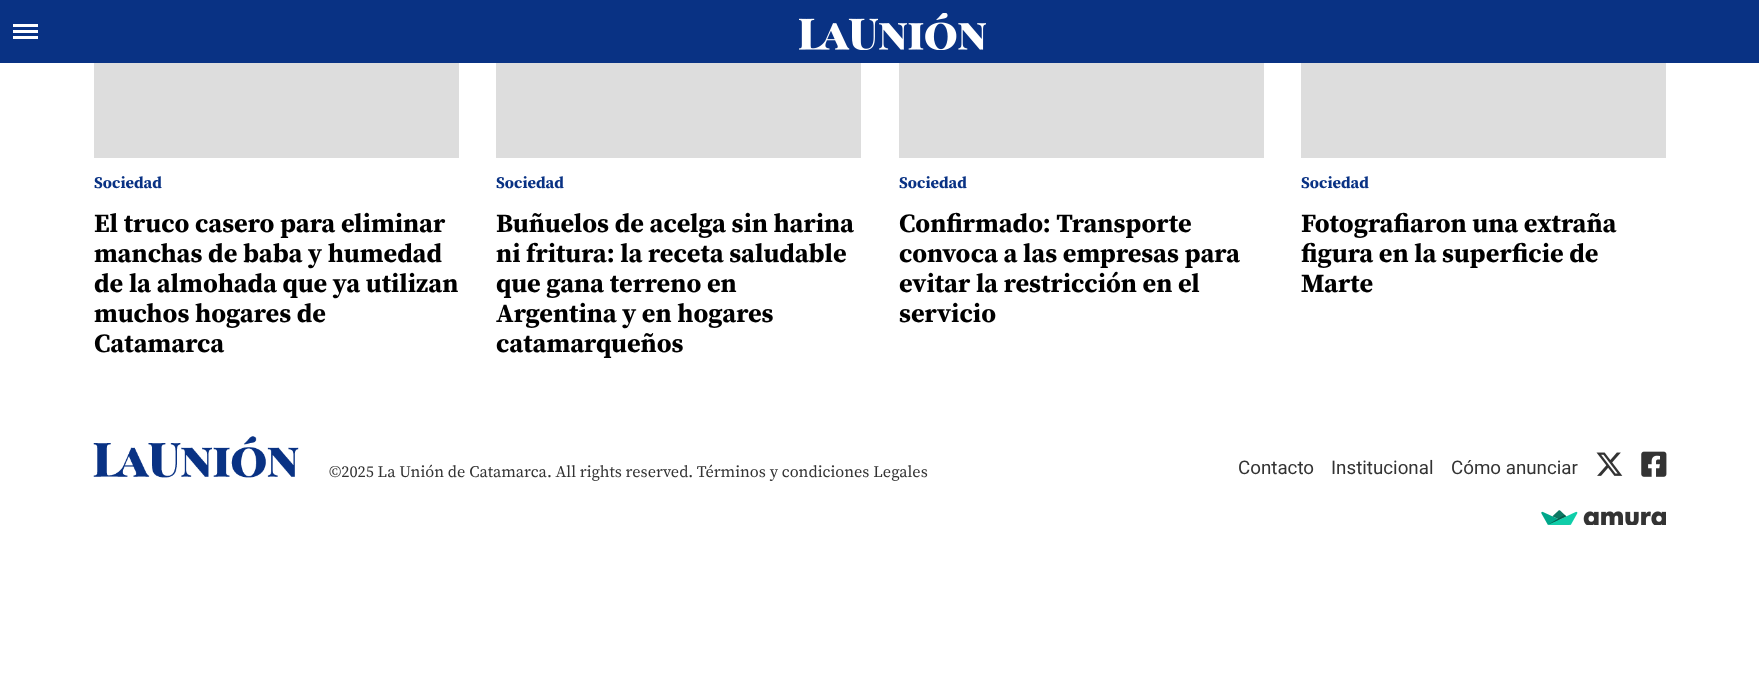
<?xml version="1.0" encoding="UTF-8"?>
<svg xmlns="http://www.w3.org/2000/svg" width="1759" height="682">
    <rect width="100%" height="100%" fill="#FFFFFF"/>
    <rect x="0" y="0" width="1759" height="63" fill="#093284"/>
    <rect x="13" y="24" width="25" height="3" fill="#FFFFFF"/>
    <rect x="13" y="30" width="25" height="3" fill="#FFFFFF"/>
    <rect x="13" y="36" width="25" height="3" fill="#FFFFFF"/>
    <image x="799" y="13" width="187" height="37" href="img_01.png"/>
    <rect x="94" y="63" width="365" height="95" fill="#DDDDDD"/>
    <text x="94" y="188" font-family="Source Serif Pro" font-size="16.25" font-weight="700" fill="#093284">Sociedad</text>
    <text font-family="Source Serif Pro" font-size="26.25" font-weight="700" fill="#000000">
        <tspan x="94" y="232">El truco casero para eliminar</tspan>
        <tspan x="94" y="262">manchas de baba y humedad</tspan>
        <tspan x="94" y="292">de la almohada que ya utilizan</tspan>
        <tspan x="94" y="322">muchos hogares de</tspan>
        <tspan x="94" y="352">Catamarca</tspan>
    </text>
    <rect x="496" y="63" width="365" height="95" fill="#DDDDDD"/>
    <text x="496" y="188" font-family="Source Serif Pro" font-size="16.25" font-weight="700" fill="#093284">Sociedad</text>
    <text font-family="Source Serif Pro" font-size="26.25" font-weight="700" fill="#000000">
        <tspan x="496" y="232">Buñuelos de acelga sin harina</tspan>
        <tspan x="496" y="262">ni fritura: la receta saludable</tspan>
        <tspan x="496" y="292">que gana terreno en</tspan>
        <tspan x="496" y="322">Argentina y en hogares</tspan>
        <tspan x="496" y="352">catamarqueños</tspan>
    </text>
    <rect x="899" y="63" width="365" height="95" fill="#DDDDDD"/>
    <text x="899" y="188" font-family="Source Serif Pro" font-size="16.25" font-weight="700" fill="#093284">Sociedad</text>
    <text font-family="Source Serif Pro" font-size="26.25" font-weight="700" fill="#000000">
        <tspan x="899" y="232">Confirmado: Transporte</tspan>
        <tspan x="899" y="262">convoca a las empresas para</tspan>
        <tspan x="899" y="292">evitar la restricción en el</tspan>
        <tspan x="899" y="322">servicio</tspan>
    </text>
    <rect x="1301" y="63" width="365" height="95" fill="#DDDDDD"/>
    <text x="1301" y="188" font-family="Source Serif Pro" font-size="16.25" font-weight="700" fill="#093284">Sociedad</text>
    <text font-family="Source Serif Pro" font-size="26.25" font-weight="700" fill="#000000">
        <tspan x="1301" y="232">Fotografiaron una extraña</tspan>
        <tspan x="1301" y="262">figura en la superficie de</tspan>
        <tspan x="1301" y="292">Marte</tspan>
    </text>
    <image x="93" y="436" width="206" height="42" href="img_02.png"/>
    <text x="329" y="477" font-family="Source Serif Pro" font-size="16.25" fill="#333333">©2025 La Unión de Catamarca. All rights reserved. Términos y condiciones Legales</text>
    <text x="1238" y="474" font-family="Roboto" font-size="18.75" fill="#333333">Contacto</text>
    <text x="1331" y="474" font-family="Roboto" font-size="18.75" fill="#333333">Institucional</text>
    <text x="1451" y="474" font-family="Roboto" font-size="18.75" fill="#333333">Cómo anunciar</text>
    <image x="1596" y="452" width="27" height="24" href="img_03.png"/>
    <image x="1641" y="451" width="26" height="26" href="img_04.png"/>
    <image x="1541" y="510" width="125" height="15" href="img_05.png"/>
</svg>
